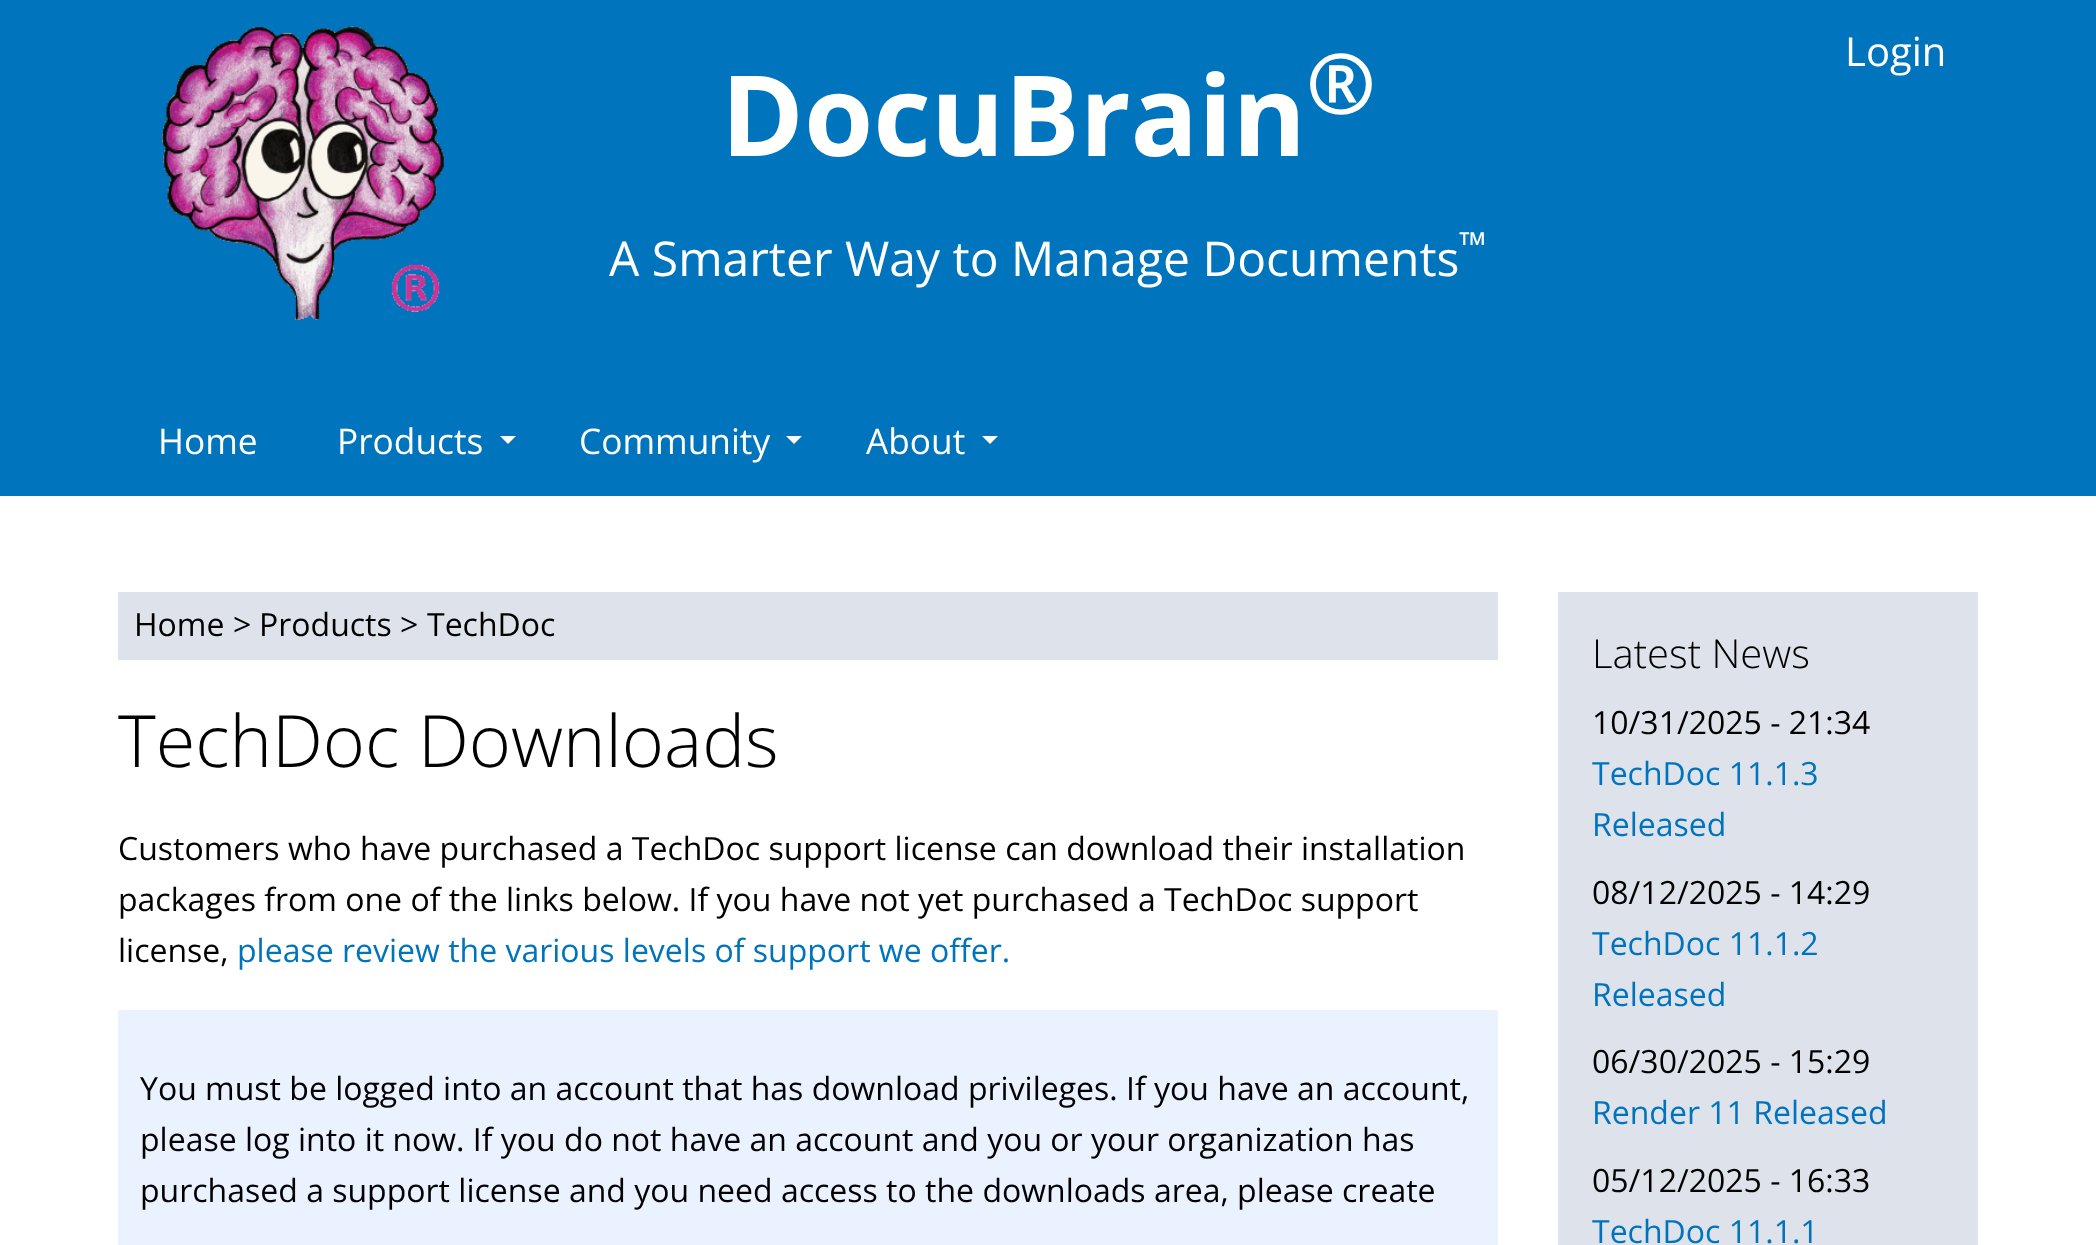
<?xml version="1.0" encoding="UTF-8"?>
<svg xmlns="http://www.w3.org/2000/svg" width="2096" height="1245">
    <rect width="100%" height="100%" fill="#FFFFFF"/>
    <rect x="0" y="0" width="2096" height="496" fill="#0074BD"/>
    <image x="161" y="26" width="283" height="295" href="img_01.png"/>
    <text x="721" y="156" font-family="Open Sans" font-size="112" font-weight="700" fill="#FFFFFE">DocuBrain</text>
    <text x="1306" y="114" font-family="Open Sans" font-size="84" font-weight="700" fill="#FFFFFE">®</text>
    <text x="1459" y="258" font-family="Open Sans" font-size="36" fill="#FFFFFE">™</text>
    <text x="609" y="276" font-family="Open Sans" font-size="48" fill="#FFFFFE">A Smarter Way to Manage Documents</text>
    <text x="1845" y="66" font-family="Open Sans" font-size="40" fill="#FFFFFE">Login</text>
    <text x="158" y="454" font-family="Open Sans" font-size="35.25" fill="#FFFFFE">Home</text>
    <text x="337" y="454" font-family="Open Sans" font-size="35.25" fill="#FFFFFE">Products</text>
    <path d="M 500 436 H 516 L 508 444 Z" fill="#FFFFFE"/>
    <text x="579" y="454" font-family="Open Sans" font-size="35.25" fill="#FFFFFE">Community</text>
    <path d="M 786 436 H 802 L 794 444 Z" fill="#FFFFFE"/>
    <text x="866" y="454" font-family="Open Sans" font-size="35.25" fill="#FFFFFE">About</text>
    <path d="M 982 436 H 998 L 990 444 Z" fill="#FFFFFE"/>
    <rect x="118" y="592" width="1380" height="68" fill="#DEE2EA"/>
    <text x="134" y="636" font-family="Open Sans" font-size="32" fill="#000001">Home</text>
    <text x="233" y="636" font-family="Open Sans" font-size="32" fill="#000001">&gt;</text>
    <text x="259" y="636" font-family="Open Sans" font-size="32" fill="#000001">Products</text>
    <text x="400" y="636" font-family="Open Sans" font-size="32" fill="#000001">&gt;</text>
    <text x="427" y="636" font-family="Open Sans" font-size="32" fill="#000001">TechDoc</text>
    <text x="118" y="767" font-family="Open Sans" font-size="72" font-weight="300" fill="#000001">TechDoc Downloads</text>
    <text font-family="Open Sans" font-size="32" fill="#000001">
        <tspan x="118" y="860">Customers who have purchased a TechDoc support license can download their installation</tspan>
        <tspan x="118" y="911">packages from one of the links below. If you have not yet purchased a TechDoc support</tspan>
        <tspan x="118" y="962">license,</tspan>
    </text>
    <text x="237" y="962" font-family="Open Sans" font-size="32" fill="#0073BD">please review the various levels of support we offer.</text>
    <rect x="118" y="1010" width="1380" height="235" fill="#EAF2FF"/>
    <text font-family="Open Sans" font-size="32" fill="#000001">
        <tspan x="140" y="1100">You must be logged into an account that has download privileges. If you have an account,</tspan>
        <tspan x="140" y="1151">please log into it now. If you do not have an account and you or your organization has</tspan>
        <tspan x="140" y="1202">purchased a support license and you need access to the downloads area, please create</tspan>
    </text>
    <rect x="1558" y="592" width="420" height="653" fill="#DEE2EA"/>
    <text x="1592" y="668" font-family="Open Sans" font-size="40" font-weight="300" fill="#000001">Latest News</text>
    <text x="1592" y="734" font-family="Open Sans" font-size="32" fill="#000001">10/31/2025 - 21:34</text>
    <text font-family="Open Sans" font-size="32" fill="#0073BD">
        <tspan x="1592" y="785">TechDoc 11.1.3</tspan>
        <tspan x="1592" y="836">Released</tspan>
    </text>
    <text x="1592" y="904" font-family="Open Sans" font-size="32" fill="#000001">08/12/2025 - 14:29</text>
    <text font-family="Open Sans" font-size="32" fill="#0073BD">
        <tspan x="1592" y="955">TechDoc 11.1.2</tspan>
        <tspan x="1592" y="1006">Released</tspan>
    </text>
    <text x="1592" y="1073" font-family="Open Sans" font-size="32" fill="#000001">06/30/2025 - 15:29</text>
    <text x="1592" y="1124" font-family="Open Sans" font-size="32" fill="#0073BD">Render 11 Released</text>
    <text x="1592" y="1192" font-family="Open Sans" font-size="32" fill="#000001">05/12/2025 - 16:33</text>
    <text x="1592" y="1243" font-family="Open Sans" font-size="32" fill="#0073BD">TechDoc 11.1.1</text>
</svg>
